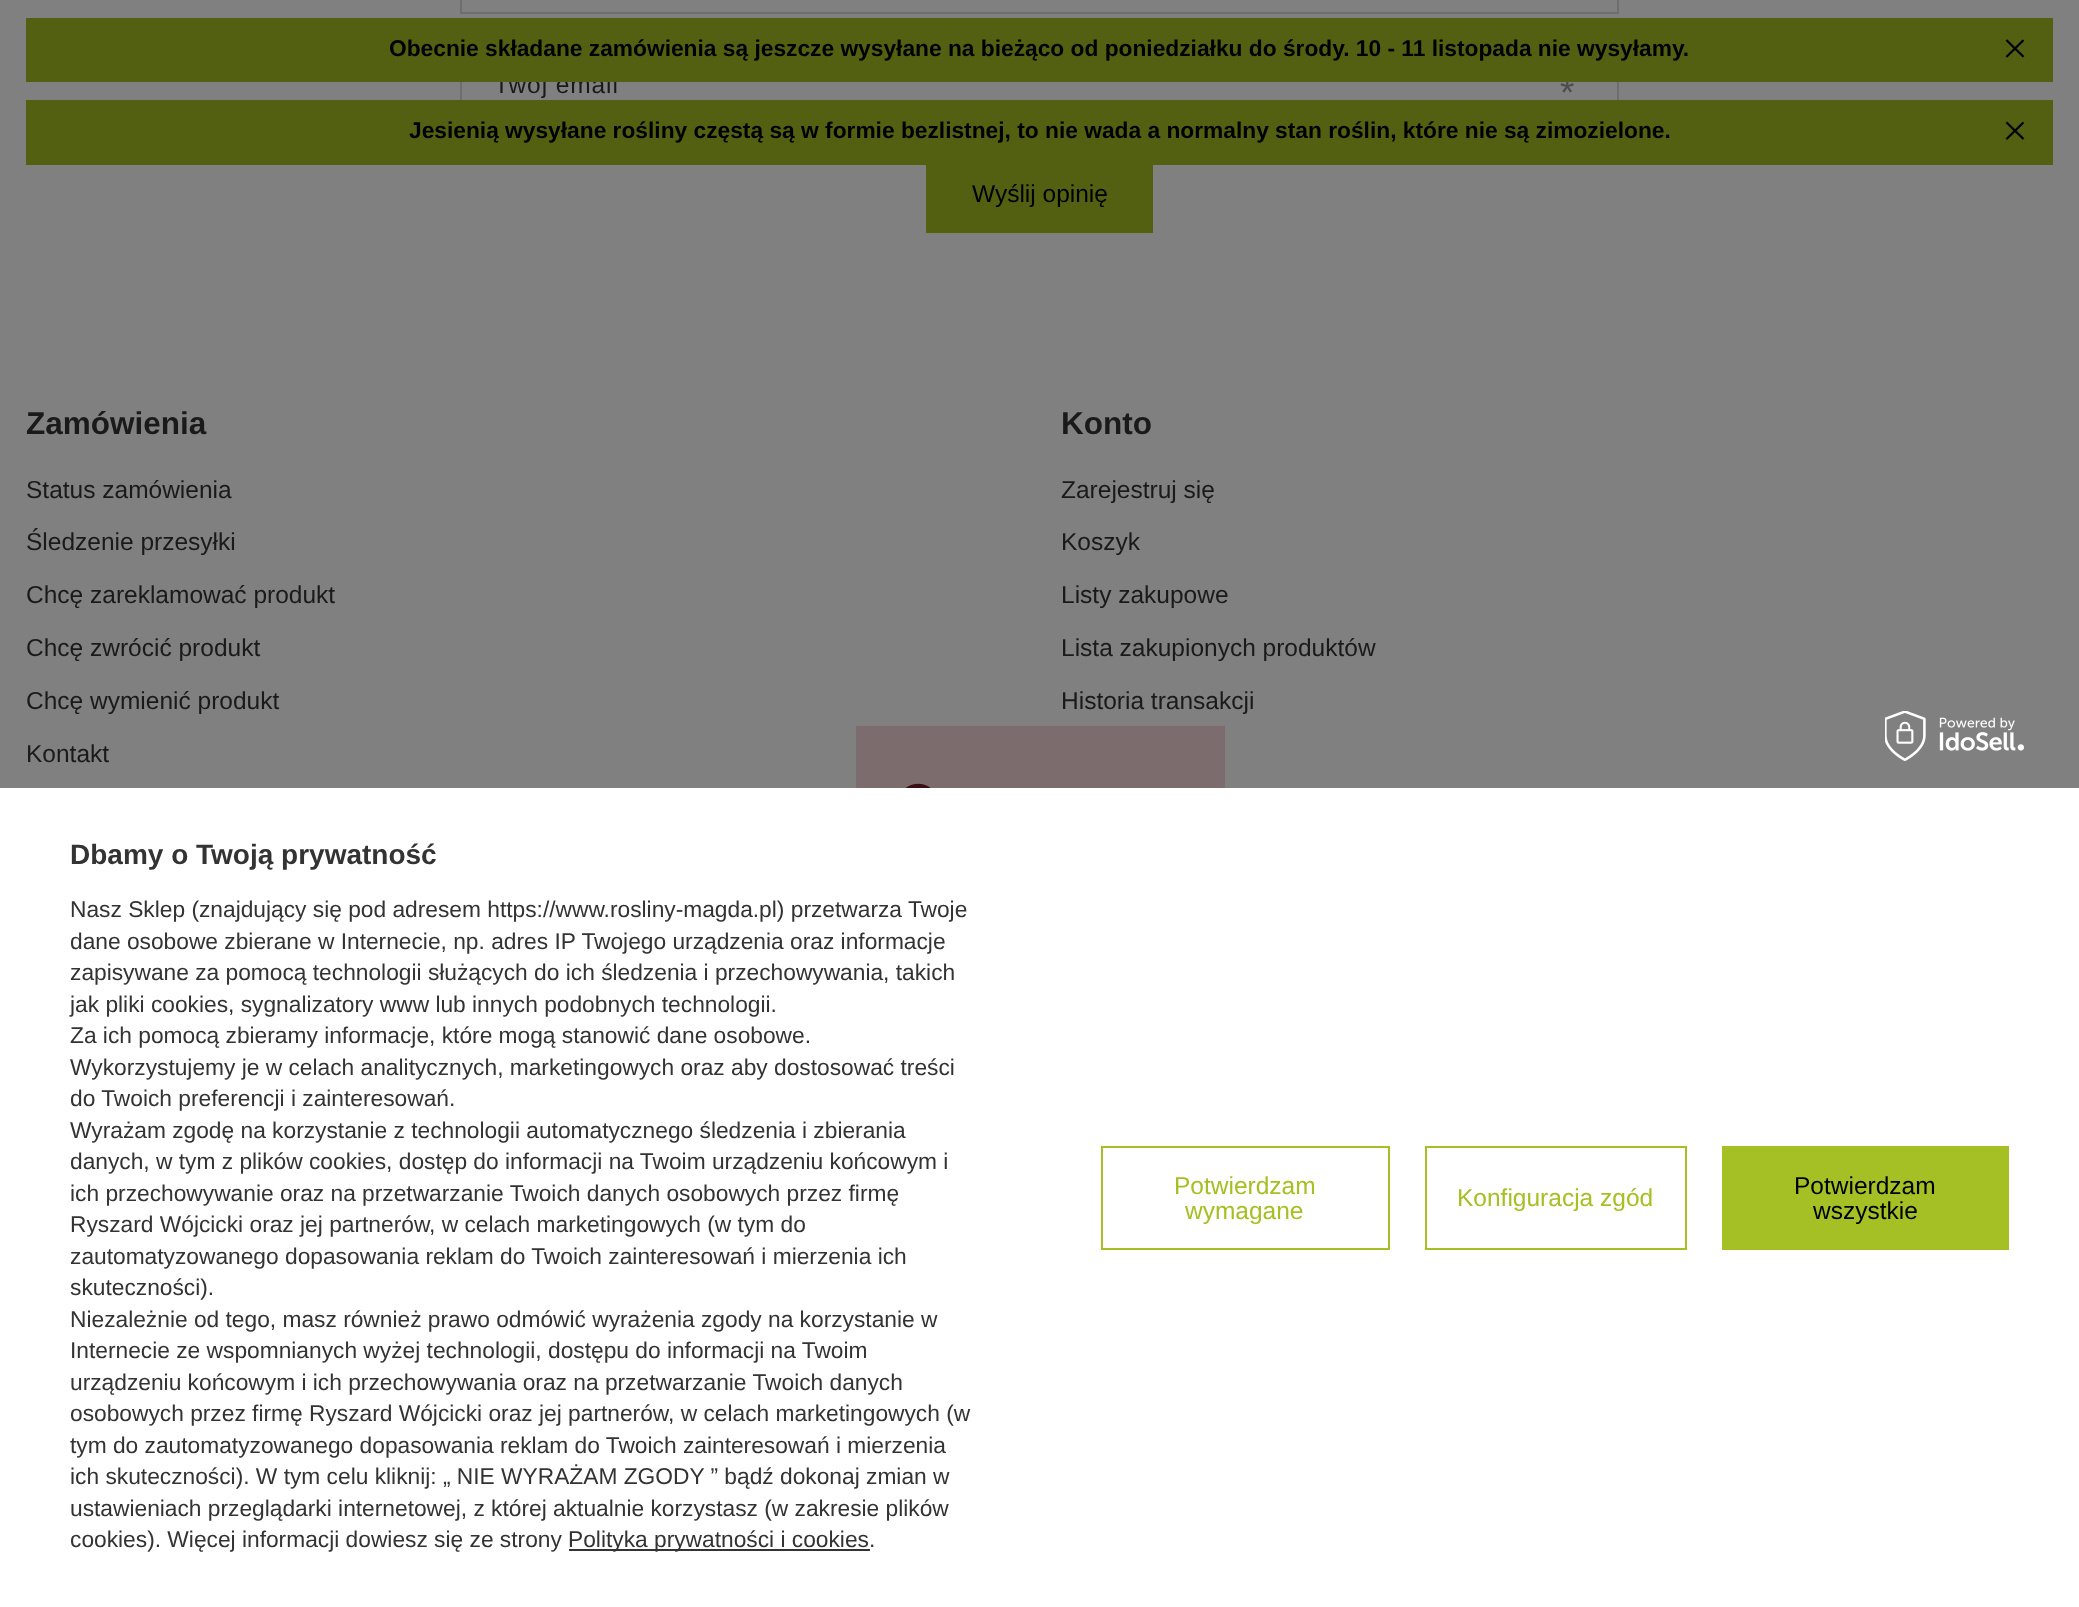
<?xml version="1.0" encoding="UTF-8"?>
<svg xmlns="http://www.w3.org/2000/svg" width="2079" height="1607">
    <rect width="100%" height="100%" fill="#808080"/>
    <rect x="461" y="41" width="1157" height="86" fill="none" stroke="#6E6E6E" stroke-width="2"/>
    <text x="494" y="93" font-family="Liberation Sans" font-size="24.5" letter-spacing="0.9" fill="#1A1A1A">Twój email</text>
    <text x="1560" y="105" font-family="Liberation Sans" font-size="37" fill="#4D4D4D">*</text>
    <rect x="26" y="18" width="2027" height="64" fill="#536012"/>
    <text x="389" y="56" font-family="Liberation Sans" font-size="22.75" font-weight="700" fill="#000000">Obecnie składane zamówienia są jeszcze wysyłane na bieżąco od poniedziałku do środy. 10 - 11 listopada nie wysyłamy.</text>
    <image x="2005" y="39" width="20" height="19" href="img_01.png"/>
    <rect x="26" y="100" width="2027" height="65" fill="#536012"/>
    <text x="409" y="138" font-family="Liberation Sans" font-size="22.75" font-weight="700" fill="#000000">Jesienią wysyłane rośliny częstą są w formie bezlistnej, to nie wada a normalny stan roślin, które nie są zimozielone.</text>
    <image x="2005" y="121" width="20" height="19" href="img_02.png"/>
    <rect x="461" y="-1" width="1157" height="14" fill="none" stroke="#6E6E6E" stroke-width="2"/>
    <rect x="926" y="165" width="227" height="68" fill="#536012"/>
    <text x="972" y="202" font-family="Liberation Sans" font-size="24.5" fill="#000000">Wyślij opinię</text>
    <text x="26" y="434" font-family="Liberation Sans" font-size="31.5" font-weight="700" fill="#1A1A1A">Zamówienia</text>
    <text x="26" y="498" font-family="Liberation Sans" font-size="24.5" fill="#1A1A1A">Status zamówienia</text>
    <text x="26" y="550" font-family="Liberation Sans" font-size="24.5" fill="#1A1A1A">Śledzenie przesyłki</text>
    <text x="26" y="603" font-family="Liberation Sans" font-size="24.5" fill="#1A1A1A">Chcę zareklamować produkt</text>
    <text x="26" y="656" font-family="Liberation Sans" font-size="24.5" fill="#1A1A1A">Chcę zwrócić produkt</text>
    <text x="26" y="709" font-family="Liberation Sans" font-size="24.5" fill="#1A1A1A">Chcę wymienić produkt</text>
    <text x="26" y="762" font-family="Liberation Sans" font-size="24.5" fill="#1A1A1A">Kontakt</text>
    <text x="1061" y="434" font-family="Liberation Sans" font-size="31.5" font-weight="700" fill="#1A1A1A">Konto</text>
    <text x="1061" y="498" font-family="Liberation Sans" font-size="24.5" fill="#1A1A1A">Zarejestruj się</text>
    <text x="1061" y="550" font-family="Liberation Sans" font-size="24.5" fill="#1A1A1A">Koszyk</text>
    <text x="1061" y="603" font-family="Liberation Sans" font-size="24.5" fill="#1A1A1A">Listy zakupowe</text>
    <text x="1061" y="656" font-family="Liberation Sans" font-size="24.5" fill="#1A1A1A">Lista zakupionych produktów</text>
    <text x="1061" y="709" font-family="Liberation Sans" font-size="24.5" fill="#1A1A1A">Historia transakcji</text>
    <rect x="856" y="726" width="369" height="62" fill="#7C6C6D"/>
    <image x="905" y="783" width="26" height="5" href="img_03.png"/>
    <rect x="0" y="788" width="2079" height="819" fill="#FFFFFF"/>
    <image x="1885" y="711" width="139" height="50" href="img_04.png"/>
    <text x="70" y="864" font-family="Liberation Sans" font-size="28" font-weight="700" fill="#333333">Dbamy o Twoją prywatność</text>
    <text font-family="Liberation Sans" font-size="22.75" fill="#333333">
        <tspan x="70" y="917">Nasz Sklep (znajdujący się pod adresem https://www.rosliny-magda.pl) przetwarza Twoje</tspan>
        <tspan x="70" y="949">dane osobowe zbierane w Internecie, np. adres IP Twojego urządzenia oraz informacje</tspan>
        <tspan x="70" y="980">zapisywane za pomocą technologii służących do ich śledzenia i przechowywania, takich</tspan>
        <tspan x="70" y="1012">jak pliki cookies, sygnalizatory www lub innych podobnych technologii.</tspan>
        <tspan x="70" y="1043">Za ich pomocą zbieramy informacje, które mogą stanowić dane osobowe.</tspan>
        <tspan x="70" y="1075">Wykorzystujemy je w celach analitycznych, marketingowych oraz aby dostosować treści</tspan>
        <tspan x="70" y="1106">do Twoich preferencji i zainteresowań.</tspan>
        <tspan x="70" y="1138">Wyrażam zgodę na korzystanie z technologii automatycznego śledzenia i zbierania</tspan>
        <tspan x="70" y="1169">danych, w tym z plików cookies, dostęp do informacji na Twoim urządzeniu końcowym i</tspan>
        <tspan x="70" y="1201">ich przechowywanie oraz na przetwarzanie Twoich danych osobowych przez firmę</tspan>
        <tspan x="70" y="1232">Ryszard Wójcicki oraz jej partnerów, w celach marketingowych (w tym do</tspan>
        <tspan x="70" y="1264">zautomatyzowanego dopasowania reklam do Twoich zainteresowań i mierzenia ich</tspan>
        <tspan x="70" y="1295">skuteczności).</tspan>
        <tspan x="70" y="1327">Niezależnie od tego, masz również prawo odmówić wyrażenia zgody na korzystanie w</tspan>
        <tspan x="70" y="1358">Internecie ze wspomnianych wyżej technologii, dostępu do informacji na Twoim</tspan>
        <tspan x="70" y="1390">urządzeniu końcowym i ich przechowywania oraz na przetwarzanie Twoich danych</tspan>
        <tspan x="70" y="1421">osobowych przez firmę Ryszard Wójcicki oraz jej partnerów, w celach marketingowych (w</tspan>
        <tspan x="70" y="1453">tym do zautomatyzowanego dopasowania reklam do Twoich zainteresowań i mierzenia</tspan>
        <tspan x="70" y="1484">ich skuteczności). W tym celu kliknij: „ NIE WYRAŻAM ZGODY ” bądź dokonaj zmian w</tspan>
        <tspan x="70" y="1516">ustawieniach przeglądarki internetowej, z której aktualnie korzystasz (w zakresie plików</tspan>
        <tspan x="70" y="1547">cookies). Więcej informacji dowiesz się ze strony</tspan>
    </text>
    <rect x="569" y="1549" width="301" height="2" fill="#333333"/>
    <text x="568" y="1547" font-family="Liberation Sans" font-size="22.75" fill="#333333">Polityka prywatności i cookies.</text>
    <rect x="1102" y="1147" width="287" height="102" fill="none" stroke="#A5C024" stroke-width="2"/>
    <text x="1174" y="1194" font-family="Liberation Sans" font-size="24.5" fill="#A5C024">Potwierdzam</text>
    <text x="1185" y="1219" font-family="Liberation Sans" font-size="24.5" fill="#A5C024">wymagane</text>
    <rect x="1426" y="1147" width="260" height="102" fill="none" stroke="#A5C024" stroke-width="2"/>
    <text x="1457" y="1206" font-family="Liberation Sans" font-size="24.5" fill="#A5C024">Konfiguracja zgód</text>
    <rect x="1722" y="1146" width="287" height="104" fill="#A5C024"/>
    <text x="1794" y="1194" font-family="Liberation Sans" font-size="24.5" fill="#000000">Potwierdzam</text>
    <text x="1813" y="1219" font-family="Liberation Sans" font-size="24.5" fill="#000000">wszystkie</text>
</svg>
